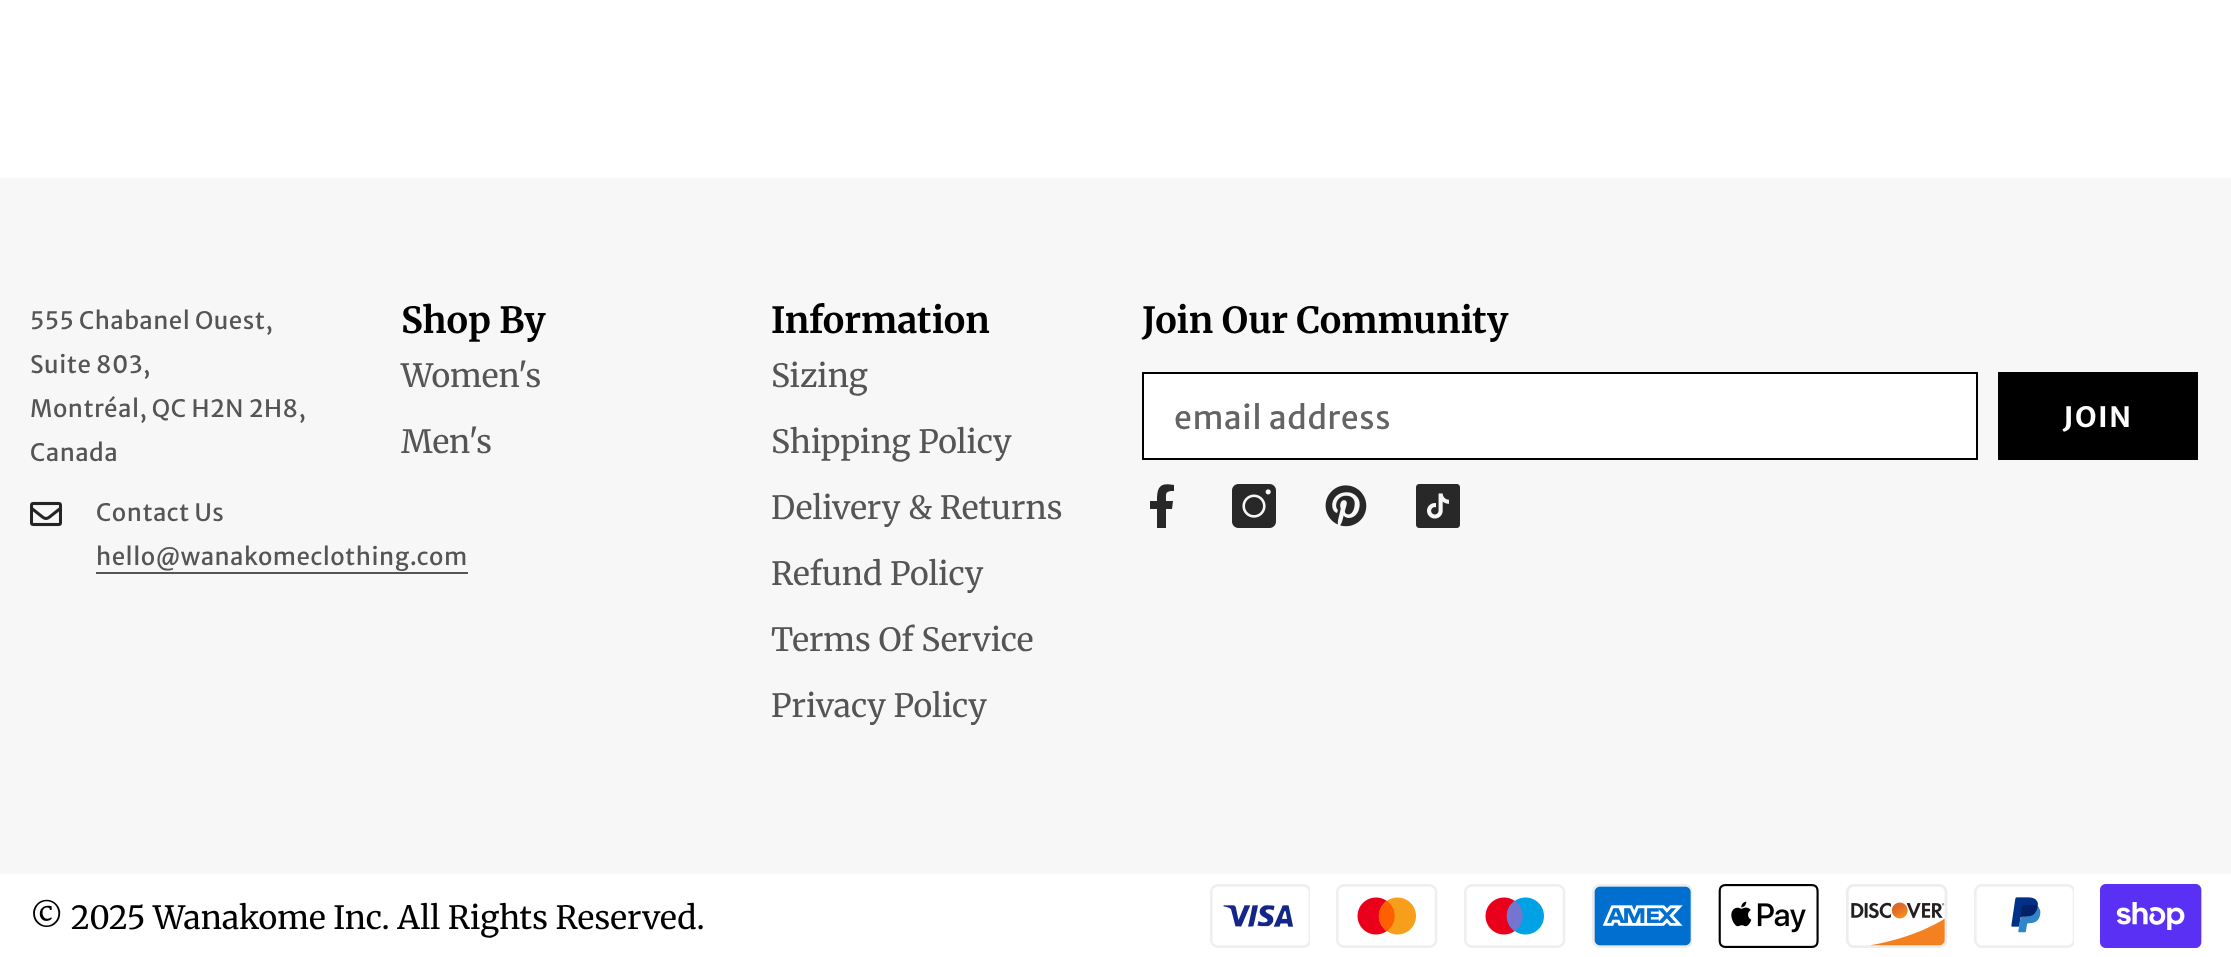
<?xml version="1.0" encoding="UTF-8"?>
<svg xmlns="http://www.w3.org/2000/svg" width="2231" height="957">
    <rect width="100%" height="100%" fill="#FFFFFF"/>
    <rect x="0" y="178" width="2231" height="696" fill="#F7F7F7"/>
    <text font-family="Merriweather Sans" font-size="24" letter-spacing="0.5" fill="#555555">
        <tspan x="30" y="329">555 Chabanel Ouest,</tspan>
        <tspan x="30" y="373">Suite 803,</tspan>
        <tspan x="30" y="417">Montréal, QC H2N 2H8,</tspan>
        <tspan x="30" y="461">Canada</tspan>
    </text>
    <image x="30" y="501" width="32" height="26" href="img_01.png"/>
    <text font-family="Merriweather Sans" font-size="24" letter-spacing="0.5" fill="#555555">
        <tspan x="96" y="521">Contact Us</tspan>
        <tspan x="96" y="565">hello@wanakomeclothing.com</tspan>
    </text>
    <rect x="96" y="572" width="372" height="2" fill="#555555"/>
    <text x="401" y="333" font-family="Merriweather" font-size="36" font-weight="700" fill="#000000">Shop By</text>
    <text x="401" y="387" font-family="Merriweather" font-size="32" fill="#555555">Women's</text>
    <text x="401" y="453" font-family="Merriweather" font-size="32" fill="#555555">Men's</text>
    <text x="771" y="333" font-family="Merriweather" font-size="36" font-weight="700" fill="#000000">Information</text>
    <text x="771" y="387" font-family="Merriweather" font-size="32" fill="#555555">Sizing</text>
    <text x="771" y="453" font-family="Merriweather" font-size="32" fill="#555555">Shipping Policy</text>
    <text x="771" y="519" font-family="Merriweather" font-size="32" fill="#555555">Delivery &amp; Returns</text>
    <text x="771" y="585" font-family="Merriweather" font-size="32" fill="#555555">Refund Policy</text>
    <text x="771" y="651" font-family="Merriweather" font-size="32" fill="#555555">Terms Of Service</text>
    <text x="771" y="717" font-family="Merriweather" font-size="32" fill="#555555">Privacy Policy</text>
    <text x="1142" y="333" font-family="Merriweather" font-size="36" font-weight="700" fill="#000000">Join Our Community</text>
    <rect x="1143" y="373" width="834" height="86" fill="#FFFFFF" stroke="#000000" stroke-width="2"/>
    <text x="1174" y="429" font-family="Merriweather Sans" font-size="32" letter-spacing="0.6" fill="#646464">email address</text>
    <rect x="1998" y="372" width="200" height="88" fill="#000000"/>
    <text x="2063" y="427" font-family="Merriweather Sans" font-size="28" font-weight="700" letter-spacing="1.5" fill="#FFFFFF">JOIN</text>
    <path d="M 1172 509 L 1173 501 H 1166 C 1166 493 1165 491 1174 491 V 485 C 1159 482 1157 488 1157 501 H 1150 V 509 H 1157 V 528 H 1166 V 509 Z" fill="#282828"/>
    <image x="1232" y="484" width="44" height="44" href="img_02.png"/>
    <image x="1325" y="485" width="42" height="42" href="img_03.png"/>
    <image x="1416" y="484" width="44" height="44" href="img_04.png"/>
    <text x="30" y="929" font-family="Merriweather" font-size="32" fill="#000000">© 2025 Wanakome Inc. All Rights Reserved.</text>
    <image x="1210" y="884" width="100" height="64" href="img_05.png"/>
    <image x="1336" y="884" width="102" height="64" href="img_06.png"/>
    <image x="1464" y="884" width="102" height="64" href="img_07.png"/>
    <image x="1592" y="884" width="100" height="64" href="img_08.png"/>
    <image x="1718" y="884" width="101" height="64" href="img_09.png"/>
    <image x="1846" y="884" width="102" height="64" href="img_10.png"/>
    <image x="1974" y="884" width="100" height="64" href="img_11.png"/>
    <image x="2100" y="884" width="102" height="64" href="img_12.png"/>
</svg>
